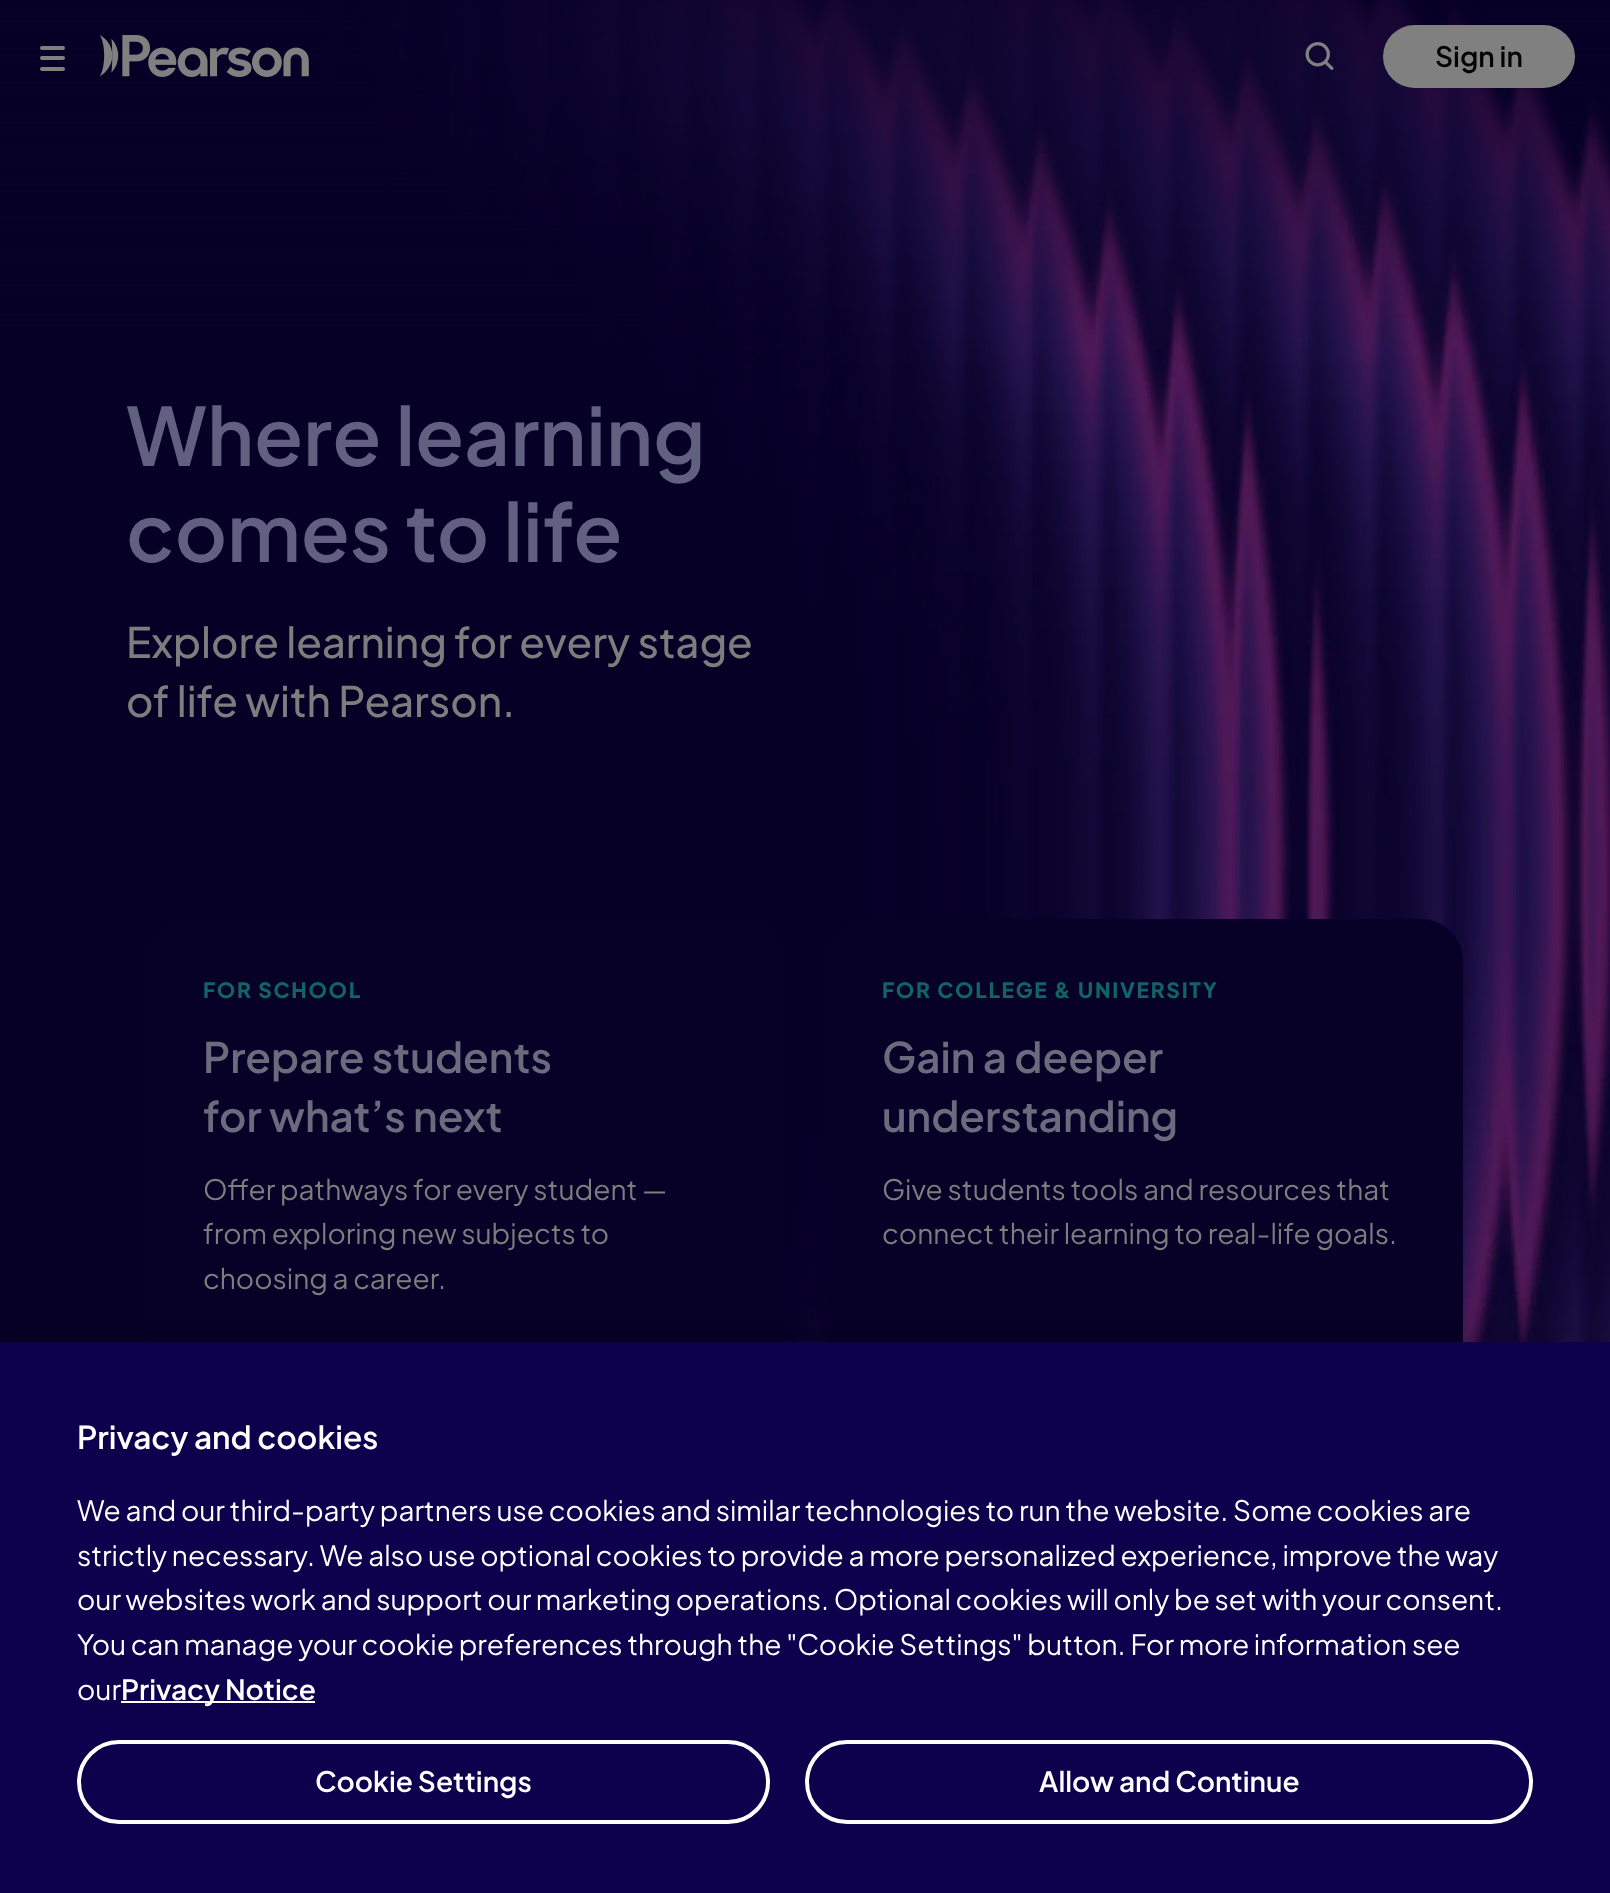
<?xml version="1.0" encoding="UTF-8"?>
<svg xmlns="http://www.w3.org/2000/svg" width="1610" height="1893">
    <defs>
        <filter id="blur1" x="-50%" y="-200%" width="200%" height="500%"><feGaussianBlur stdDeviation="16"/></filter>
    </defs>
    <rect width="100%" height="100%" fill="#FFFFFF"/>
    <image x="0" y="0" width="1610" height="1342" href="img_03.png"/>
    <rect x="40" y="56" width="25" height="4" rx="2" fill="#808080"/>
    <rect x="40" y="46" width="25" height="4" rx="2" fill="#808080"/>
    <rect x="40" y="67" width="25" height="4" rx="2" fill="#808080"/>
    <image x="100" y="35" width="209" height="42" href="img_01.png"/>
    <image x="1305" y="42" width="29" height="28" href="img_02.png"/>
    <rect x="1383" y="25" width="192" height="63" rx="31.5" fill="#808080"/>
    <text x="1435" y="67" font-family="Plus Jakarta Sans" font-size="28" font-weight="600" fill="#030305">Sign in</text>
    <text font-family="Plus Jakarta Sans" font-size="80.25" font-weight="600" fill="#616080">
        <tspan x="126" y="466">Where learning</tspan>
        <tspan x="126" y="562">comes to life</tspan>
    </text>
    <text font-family="Plus Jakarta Sans" font-size="42" font-weight="500" fill="#7D7D7E">
        <tspan x="126" y="658">Explore learning for every stage</tspan>
        <tspan x="126" y="717">of life with Pearson.</tspan>
    </text>
    <rect x="147" y="919" width="637" height="525" rx="42" fill="#070027"/>
    <text x="203" y="998" font-family="Plus Jakarta Sans" font-size="21" font-weight="800" letter-spacing="1.7" fill="#116463">FOR SCHOOL</text>
    <text font-family="Plus Jakarta Sans" font-size="42" font-weight="600" fill="#6B6B7E">
        <tspan x="203" y="1073">Prepare students</tspan>
        <tspan x="203" y="1132">for what’s next</tspan>
    </text>
    <text font-family="Plus Jakarta Sans" font-size="28" fill="#7D7D7E">
        <tspan x="203" y="1200">Offer pathways for every student —</tspan>
        <tspan x="203" y="1244">from exploring new subjects to</tspan>
        <tspan x="203" y="1289">choosing a career.</tspan>
    </text>
    <rect x="826" y="919" width="637" height="525" rx="42" fill="#070027"/>
    <text x="882" y="998" font-family="Plus Jakarta Sans" font-size="21" font-weight="800" letter-spacing="1.7" fill="#116463">FOR COLLEGE &amp; UNIVERSITY</text>
    <text font-family="Plus Jakarta Sans" font-size="42" font-weight="600" fill="#6B6B7E">
        <tspan x="882" y="1073">Gain a deeper</tspan>
        <tspan x="882" y="1132">understanding</tspan>
    </text>
    <text font-family="Plus Jakarta Sans" font-size="28" fill="#7D7D7E">
        <tspan x="882" y="1200">Give students tools and resources that</tspan>
        <tspan x="882" y="1244">connect their learning to real-life goals.</tspan>
    </text>
    <rect x="0" y="1342" width="1610" height="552" fill="#000000" fill-opacity="0.2" filter="url(#blur1)"/>
    <rect x="0" y="1342" width="1610" height="551" fill="#0D004D"/>
    <text x="77" y="1449" font-family="Plus Jakarta Sans" font-size="31.5" font-weight="600" fill="#FFFFFF">Privacy and cookies</text>
    <text font-family="Plus Jakarta Sans" font-size="28" fill="#FFFFFF">
        <tspan x="77" y="1521">We and our third-party partners use cookies and similar technologies to run the website. Some cookies are</tspan>
        <tspan x="77" y="1566">strictly necessary. We also use optional cookies to provide a more personalized experience, improve the way</tspan>
        <tspan x="77" y="1610">our websites work and support our marketing operations. Optional cookies will only be set with your consent.</tspan>
        <tspan x="77" y="1655">You can manage your cookie preferences through the "Cookie Settings" button. For more information see</tspan>
        <tspan x="77" y="1700">our</tspan>
    </text>
    <rect x="121" y="1701" width="194" height="2" fill="#FEFEFE"/>
    <text x="121" y="1700" font-family="Plus Jakarta Sans" font-size="28" font-weight="600" fill="#FFFFFF">Privacy Notice</text>
    <rect x="79" y="1742" width="689" height="80" rx="40" fill="none" stroke="#FFFFFF" stroke-width="4"/>
    <text x="315" y="1792" font-family="Plus Jakarta Sans" font-size="28" font-weight="600" fill="#FFFFFF">Cookie Settings</text>
    <rect x="807" y="1742" width="724" height="80" rx="40" fill="none" stroke="#FFFFFF" stroke-width="4"/>
    <text x="1039" y="1792" font-family="Plus Jakarta Sans" font-size="28" font-weight="600" fill="#FFFFFF">Allow and Continue</text>
</svg>
